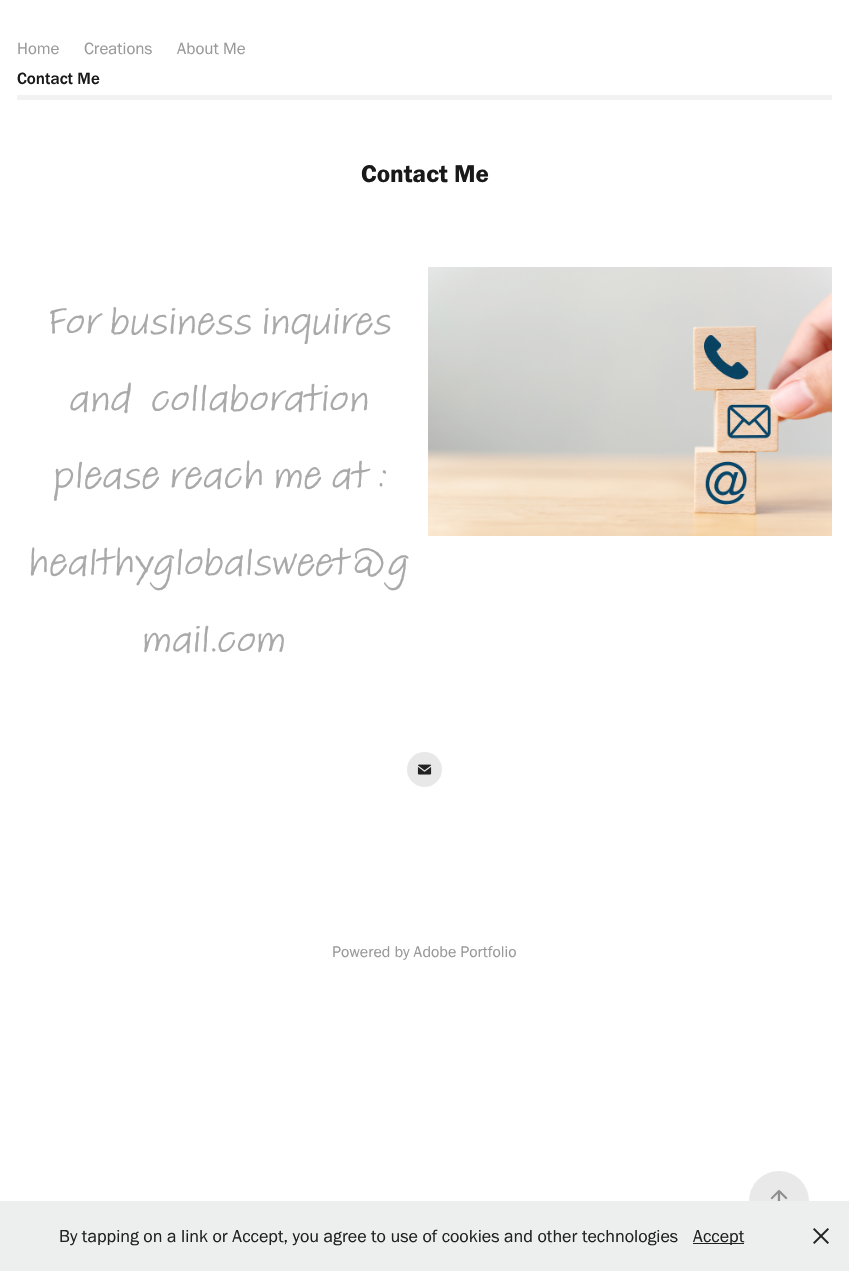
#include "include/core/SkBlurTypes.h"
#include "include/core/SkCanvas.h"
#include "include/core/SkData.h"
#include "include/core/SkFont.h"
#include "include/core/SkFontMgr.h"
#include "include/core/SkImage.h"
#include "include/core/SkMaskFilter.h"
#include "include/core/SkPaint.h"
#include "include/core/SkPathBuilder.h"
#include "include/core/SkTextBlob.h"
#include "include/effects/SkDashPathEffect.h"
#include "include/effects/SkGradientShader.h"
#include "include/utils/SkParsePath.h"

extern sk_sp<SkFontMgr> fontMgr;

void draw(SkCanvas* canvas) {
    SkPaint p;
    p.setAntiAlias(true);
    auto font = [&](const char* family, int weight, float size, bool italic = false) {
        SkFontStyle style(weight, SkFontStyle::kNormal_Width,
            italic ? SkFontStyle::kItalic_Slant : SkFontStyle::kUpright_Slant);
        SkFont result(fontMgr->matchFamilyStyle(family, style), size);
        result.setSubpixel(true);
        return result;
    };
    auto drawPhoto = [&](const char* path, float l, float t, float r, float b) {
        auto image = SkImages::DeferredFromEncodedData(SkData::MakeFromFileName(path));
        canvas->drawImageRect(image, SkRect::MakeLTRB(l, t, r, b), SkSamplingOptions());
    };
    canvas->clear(0xFFFFFFFF);
    p.setColor(0xFFF2F2F2);
    canvas->drawRect(SkRect::MakeLTRB(17, 95, 832, 100), p);
    auto font1 = font("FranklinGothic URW", 400, 17);
    p.setColor(0xFF999999);
    {
        const struct { const char* s; float x, y; } items[] = {
            {"Home", 17, 54},
            {"Creations", 84, 54},
            {"About Me", 177, 54},
        };
        for (auto [s, x, y] : items) {
            canvas->drawString(s, x, y, font1, p);
        }
    }
    auto font2 = font("FranklinGothic URW", 500, 17);
    p.setColor(0xFF191919);
    canvas->drawString("Contact Me", 17, 84, font2, p);
    auto font3 = font("FranklinGothic URW", 600, 25);
    canvas->drawString("Contact Me", 361, 182, font3, p);
    auto font4 = font("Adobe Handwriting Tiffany", 400, 40);
    p.setColor(0xFFA9A9A9);
    {
        const struct { const char* s; float x, y; } items[] = {
            {"For business inquires", 46, 334},
            {"and  collaboration", 69, 411},
            {"please reach me at :", 53, 488},
            {"healthyglobalsweet@g", 28, 575},
            {"mail.com", 142, 652},
        };
        for (auto [s, x, y] : items) {
            canvas->drawString(s, x, y, font4, p);
        }
    }
    drawPhoto("media/1.png", 428, 267, 832, 536);
    p.setColor(0xFFE8E8E8);
    canvas->drawCircle(424.5f, 769.5f, 17.5f, p);
    drawPhoto("media/2.png", 417, 764, 432, 775);
    p.setColor(0xFFE9E9E9);
    canvas->drawCircle(779, 1201, 30, p);
    drawPhoto("media/3.png", 770, 1190, 788, 1201);
    auto font5 = font("FranklinGothic URW", 400, 16);
    p.setColor(0xFF999999);
    canvas->drawString("Powered by Adobe Portfolio", 332, 957, font5, p);
    p.setColor(0xFFEDEEEE);
    canvas->drawRect(SkRect::MakeLTRB(0, 1201, 849, 1271), p);
    auto font6 = font("FranklinGothic URW", 400, 18);
    p.setColor(0xFF212121);
    canvas->drawString("By tapping on a link or Accept, you agree to use of cookies and other technologies", 59, 1242, font6, p);
    canvas->drawRect(SkRect::MakeLTRB(693, 1243, 744, 1244), p);
    canvas->drawString("Accept", 693, 1242, font6, p);
    drawPhoto("media/4.png", 813, 1228, 829, 1244);
}
